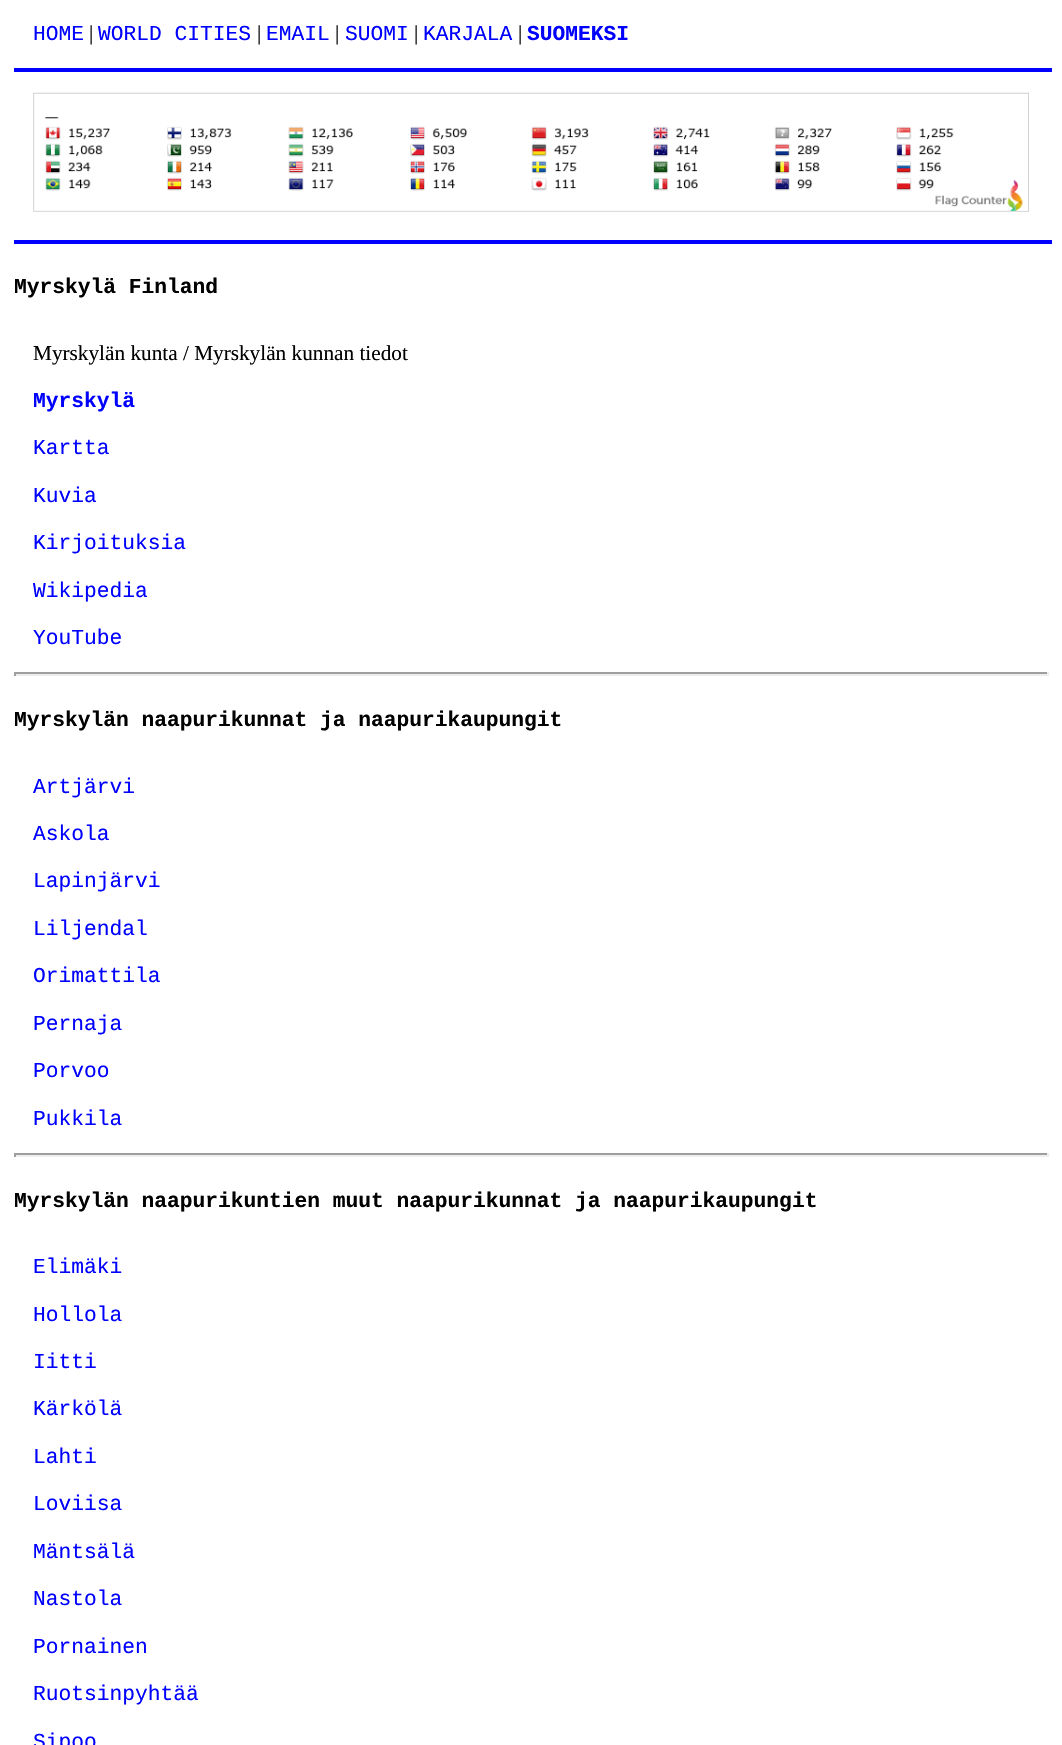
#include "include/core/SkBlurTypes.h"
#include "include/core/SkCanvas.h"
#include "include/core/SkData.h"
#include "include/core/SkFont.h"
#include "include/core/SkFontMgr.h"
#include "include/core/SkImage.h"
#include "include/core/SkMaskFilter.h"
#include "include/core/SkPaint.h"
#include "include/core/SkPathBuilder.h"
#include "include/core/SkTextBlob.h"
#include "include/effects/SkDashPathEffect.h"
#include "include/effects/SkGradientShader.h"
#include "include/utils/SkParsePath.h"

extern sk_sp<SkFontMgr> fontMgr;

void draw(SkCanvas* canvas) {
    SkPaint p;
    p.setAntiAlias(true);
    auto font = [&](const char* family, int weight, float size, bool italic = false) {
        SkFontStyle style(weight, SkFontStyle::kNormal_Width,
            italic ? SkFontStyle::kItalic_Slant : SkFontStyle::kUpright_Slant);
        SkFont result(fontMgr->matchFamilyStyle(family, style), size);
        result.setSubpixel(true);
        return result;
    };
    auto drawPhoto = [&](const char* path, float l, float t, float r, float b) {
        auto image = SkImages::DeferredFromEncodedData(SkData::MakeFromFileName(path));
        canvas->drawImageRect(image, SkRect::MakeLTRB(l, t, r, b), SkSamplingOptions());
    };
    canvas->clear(0xFFFFFFFF);
    auto font1 = font("Liberation Mono", 400, 21.25f);
    p.setColor(0xFF0000FF);
    canvas->drawString("HOME", 33, 40, font1, p);
    auto font2 = font("Liberation Serif", 400, 21.25f);
    p.setColor(0xFF000000);
    canvas->drawString("|", 89, 40, font2, p);
    p.setColor(0xFF0000FF);
    canvas->drawString("WORLD CITIES", 98, 40, font1, p);
    p.setColor(0xFF000000);
    canvas->drawString("|", 257, 40, font2, p);
    p.setColor(0xFF0000FF);
    canvas->drawString("EMAIL", 266, 40, font1, p);
    p.setColor(0xFF000000);
    canvas->drawString("|", 335, 40, font2, p);
    p.setColor(0xFF0000FF);
    canvas->drawString("SUOMI", 345, 40, font1, p);
    p.setColor(0xFF000000);
    canvas->drawString("|", 414, 40, font2, p);
    p.setColor(0xFF0000FF);
    canvas->drawString("KARJALA", 423, 40, font1, p);
    p.setColor(0xFF000000);
    canvas->drawString("|", 518, 40, font2, p);
    auto font3 = font("Liberation Mono", 700, 21.25f);
    p.setColor(0xFF0000FF);
    canvas->drawString("SUOMEKSI", 527, 40, font3, p);
    canvas->drawRect(SkRect::MakeLTRB(14, 68, 1052, 72), p);
    drawPhoto("media/1.png", 33, 92, 1029, 212);
    canvas->drawRect(SkRect::MakeLTRB(14, 240, 1052, 244), p);
    p.setColor(0xFF000000);
    canvas->drawString("Myrskylä Finland", 14, 293, font3, p);
    canvas->drawString("Myrskylän kunta / Myrskylän kunnan tiedot", 33, 360, font2, p);
    p.setColor(0xFF0000FF);
    canvas->drawString("Myrskylä", 33, 407, font3, p);
    {
        const struct { const char* s; float x, y; } items[] = {
            {"Kartta", 33, 454},
            {"Kuvia", 33, 502},
            {"Kirjoituksia", 33, 549},
            {"Wikipedia", 33, 597},
            {"YouTube", 33, 644},
        };
        for (auto [s, x, y] : items) {
            canvas->drawString(s, x, y, font1, p);
        }
    }
    {
        const struct { float l, t, r, b; SkColor color; } items[] = {
            {14, 672, 1048, 674, 0xFF9F9F9F},
            {1047, 672, 1049, 676, 0xFFEEEEEE},
            {14, 674, 1048, 676, 0xFFEEEEEE},
            {14, 672, 16, 676, 0xFF9F9F9F},
        };
        for (auto [l, t, r, b, color] : items) {
            p.setColor(color);
            canvas->drawRect(SkRect::MakeLTRB(l, t, r, b), p);
        }
    }
    p.setColor(0xFF000000);
    canvas->drawString("Myrskylän naapurikunnat ja naapurikaupungit", 14, 726, font3, p);
    p.setColor(0xFF0000FF);
    {
        const struct { const char* s; float x, y; } items[] = {
            {"Artjärvi", 33, 793},
            {"Askola", 33, 840},
            {"Lapinjärvi", 33, 887},
            {"Liljendal", 33, 935},
            {"Orimattila", 33, 982},
            {"Pernaja", 33, 1030},
            {"Porvoo", 33, 1077},
            {"Pukkila", 33, 1125},
        };
        for (auto [s, x, y] : items) {
            canvas->drawString(s, x, y, font1, p);
        }
    }
    {
        const struct { float l, t, r, b; SkColor color; } items[] = {
            {14, 1153, 1048, 1155, 0xFF9F9F9F},
            {1047, 1153, 1049, 1157, 0xFFEEEEEE},
            {14, 1155, 1048, 1157, 0xFFEEEEEE},
            {14, 1153, 16, 1157, 0xFF9F9F9F},
        };
        for (auto [l, t, r, b, color] : items) {
            p.setColor(color);
            canvas->drawRect(SkRect::MakeLTRB(l, t, r, b), p);
        }
    }
    p.setColor(0xFF000000);
    canvas->drawString("Myrskylän naapurikuntien muut naapurikunnat ja naapurikaupungit", 14, 1207, font3, p);
    p.setColor(0xFF0000FF);
    {
        const struct { const char* s; float x, y; } items[] = {
            {"Elimäki", 33, 1273},
            {"Hollola", 33, 1321},
            {"Iitti", 33, 1368},
            {"Kärkölä", 33, 1415},
            {"Lahti", 33, 1463},
            {"Loviisa", 33, 1510},
            {"Mäntsälä", 33, 1558},
            {"Nastola", 33, 1605},
            {"Pornainen", 33, 1653},
            {"Ruotsinpyhtää", 33, 1700},
            {"Sipoo", 33, 1748},
        };
        for (auto [s, x, y] : items) {
            canvas->drawString(s, x, y, font1, p);
        }
    }
}
